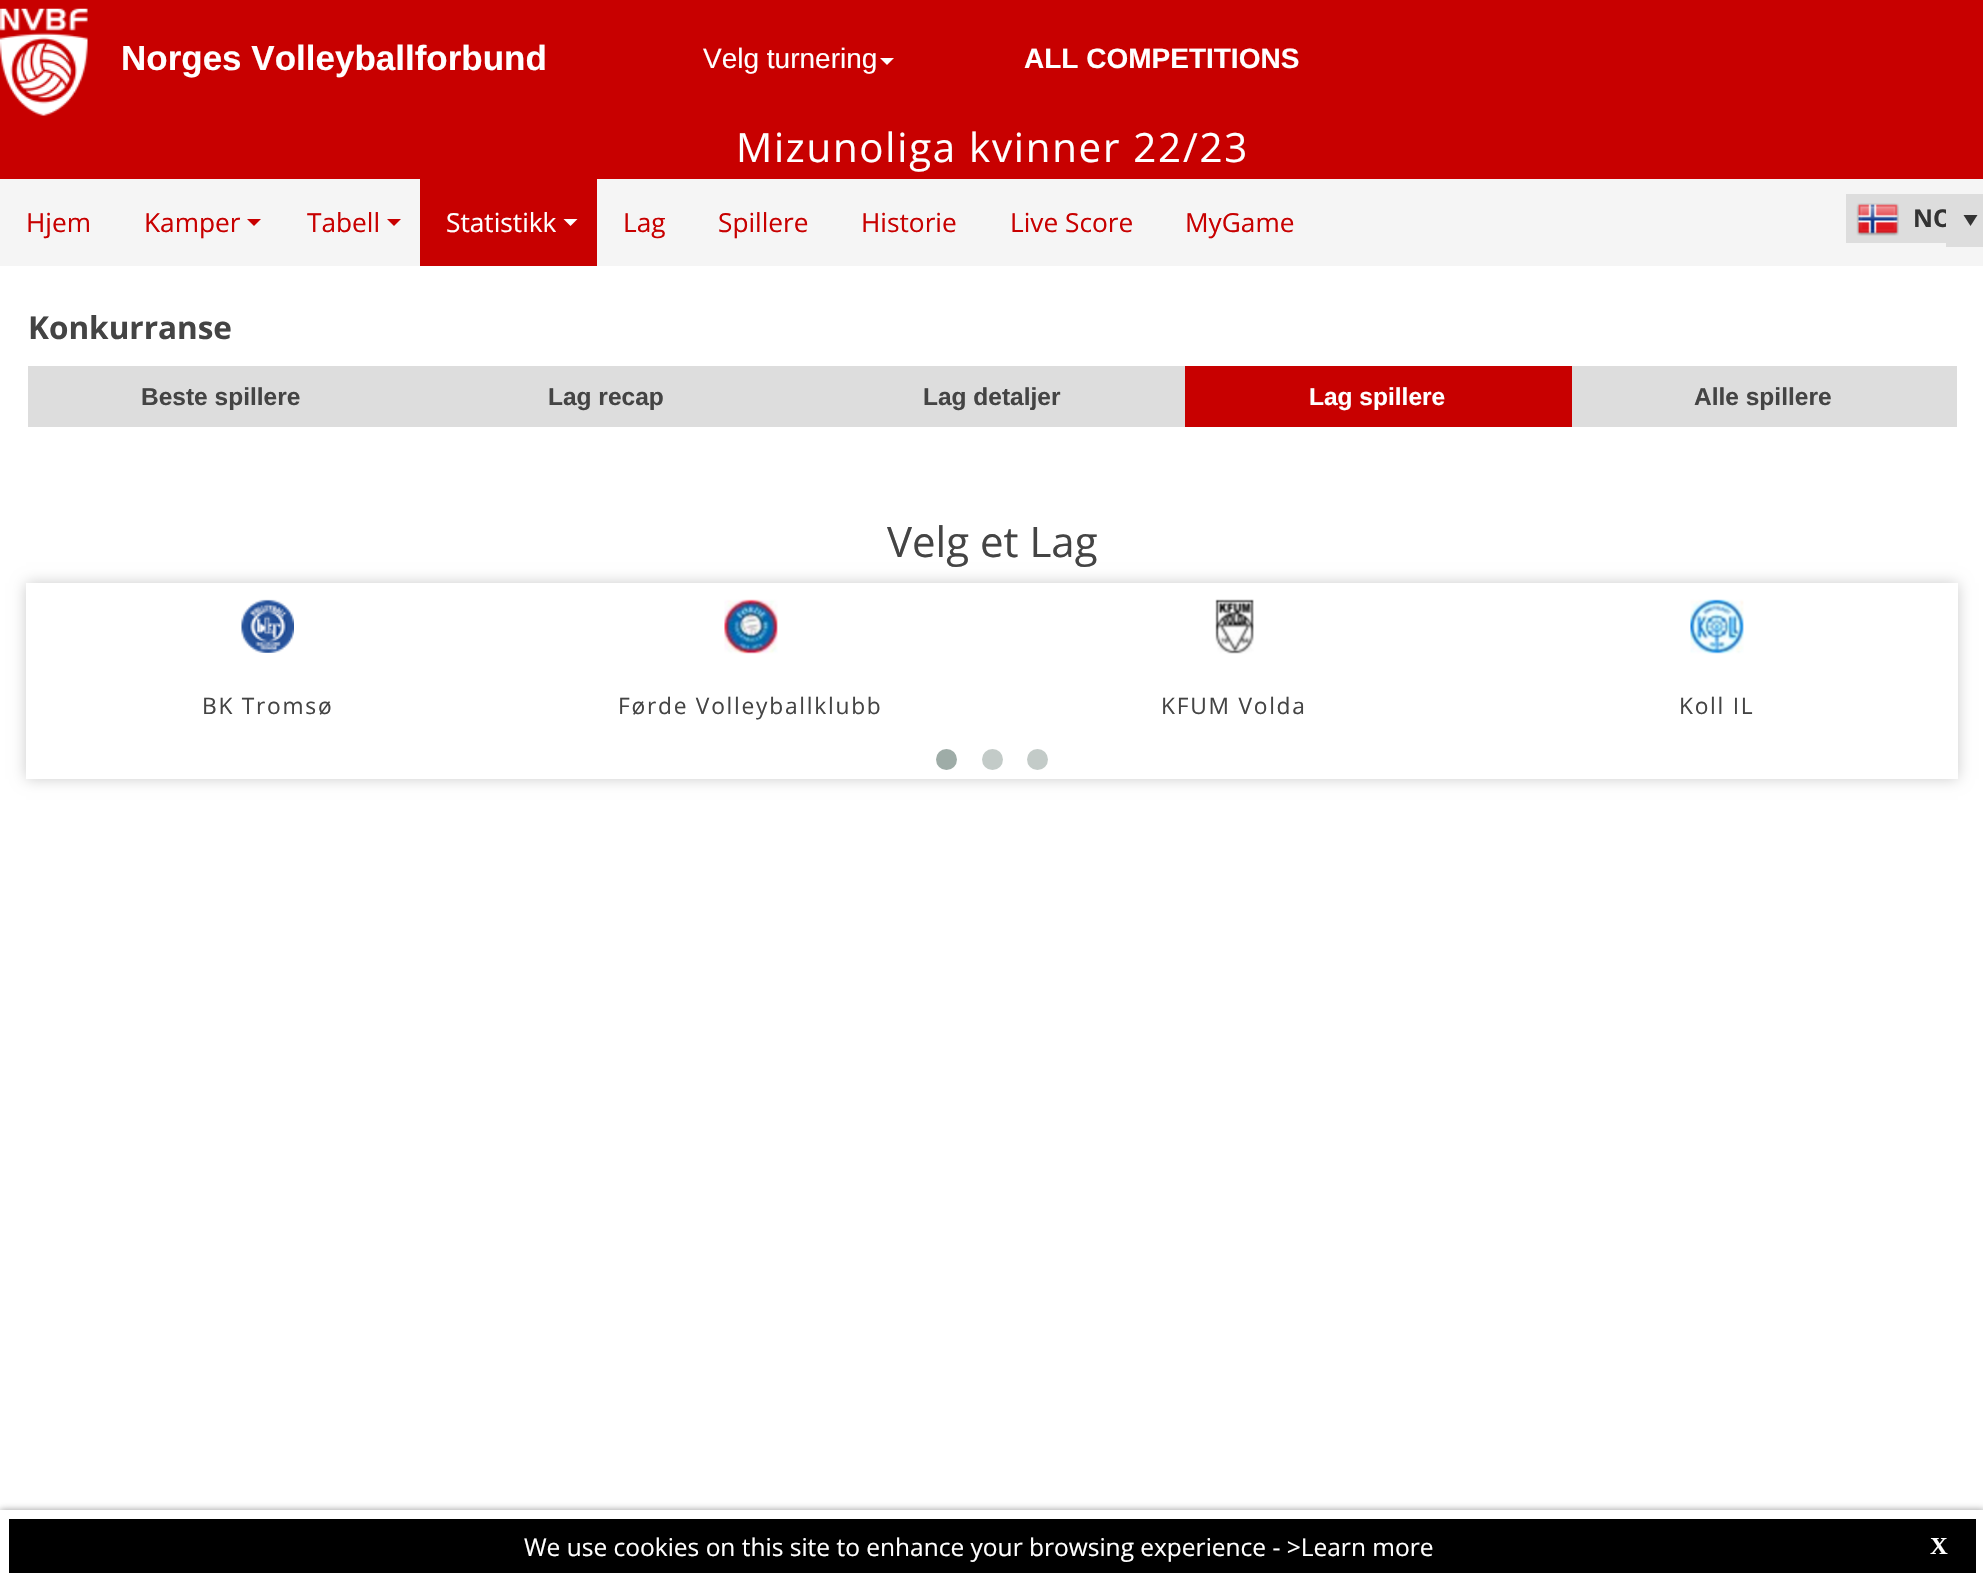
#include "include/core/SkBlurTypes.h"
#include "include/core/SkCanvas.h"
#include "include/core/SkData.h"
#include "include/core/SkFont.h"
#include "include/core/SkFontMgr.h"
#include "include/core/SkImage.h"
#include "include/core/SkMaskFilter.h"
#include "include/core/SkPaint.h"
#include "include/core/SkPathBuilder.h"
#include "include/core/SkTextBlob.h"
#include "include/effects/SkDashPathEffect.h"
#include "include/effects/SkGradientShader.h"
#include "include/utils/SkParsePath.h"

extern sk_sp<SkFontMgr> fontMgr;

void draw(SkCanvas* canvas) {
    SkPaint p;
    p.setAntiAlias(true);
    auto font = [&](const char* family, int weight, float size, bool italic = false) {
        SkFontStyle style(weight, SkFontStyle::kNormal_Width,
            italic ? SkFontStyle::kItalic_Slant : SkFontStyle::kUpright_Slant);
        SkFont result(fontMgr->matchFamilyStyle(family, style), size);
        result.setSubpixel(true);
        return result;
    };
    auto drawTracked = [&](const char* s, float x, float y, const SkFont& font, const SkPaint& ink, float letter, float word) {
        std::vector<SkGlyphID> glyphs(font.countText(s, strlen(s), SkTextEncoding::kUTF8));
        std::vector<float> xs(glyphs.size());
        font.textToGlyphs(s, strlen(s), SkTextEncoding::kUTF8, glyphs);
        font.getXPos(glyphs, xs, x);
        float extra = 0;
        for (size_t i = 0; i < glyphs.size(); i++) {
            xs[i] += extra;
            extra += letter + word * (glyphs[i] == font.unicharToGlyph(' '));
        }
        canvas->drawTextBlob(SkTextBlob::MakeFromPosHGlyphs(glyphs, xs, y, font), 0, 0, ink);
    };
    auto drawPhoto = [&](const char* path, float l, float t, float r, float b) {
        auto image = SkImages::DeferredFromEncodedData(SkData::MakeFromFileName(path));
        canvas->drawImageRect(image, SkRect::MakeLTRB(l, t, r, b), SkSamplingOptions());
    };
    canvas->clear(0xFFFFFFFF);
    p.setColor(0xFFC80000);
    canvas->drawRect(SkRect::MakeLTRB(0, 0, 1983, 179), p);
    drawPhoto("media/1.png", 0, 8, 88, 116);
    auto font1 = font("Liberation Sans", 700, 35);
    p.setColor(0xFFFFFFFF);
    canvas->drawString("Norges Volleyballforbund", 121, 70, font1, p);
    auto font2 = font("Liberation Sans", 400, 28);
    canvas->drawString("Velg turnering", 703, 68, font2, p);
    canvas->drawPath(SkPathBuilder().moveTo(880, 58).lineTo(894, 58).lineTo(887, 65).close().detach(), p);
    auto font3 = font("Liberation Sans", 700, 28);
    canvas->drawString("ALL COMPETITIONS", 1024, 68, font3, p);
    auto font4 = font("Open Sans", 400, 40.25f);
    drawTracked("Mizunoliga kvinner 22/23", 736, 162, font4, p, 1.75f, 0);
    p.setColor(0xFFF5F5F5);
    canvas->drawRect(SkRect::MakeLTRB(0, 179, 1983, 266), p);
    auto font5 = font("Open Sans", 400, 26.25f);
    p.setColor(0xFFC80000);
    canvas->drawString("Hjem", 26, 232, font5, p);
    canvas->drawString("Kamper", 144, 232, font5, p);
    canvas->drawPath(SkPathBuilder().moveTo(247, 219).lineTo(261, 219).lineTo(254, 226).close().detach(), p);
    canvas->drawString("Tabell", 307, 232, font5, p);
    canvas->drawPath(SkPathBuilder().moveTo(387, 219).lineTo(401, 219).lineTo(394, 226).close().detach(), p);
    canvas->drawRect(SkRect::MakeLTRB(420, 179, 597, 266), p);
    p.setColor(0xFFFFFFFF);
    canvas->drawString("Statistikk", 446, 232, font5, p);
    canvas->drawPath(SkPathBuilder().moveTo(563.5f, 219).lineTo(577.5f, 219).lineTo(570.5f, 226).close().detach(), p);
    p.setColor(0xFFC80000);
    {
        const struct { const char* s; float x, y; } items[] = {
            {"Lag", 623, 232},
            {"Spillere", 718, 232},
            {"Historie", 861, 232},
            {"Live Score", 1010, 232},
            {"MyGame", 1185, 232},
        };
        for (auto [s, x, y] : items) {
            canvas->drawString(s, x, y, font5, p);
        }
    }
    p.setColor(0xFFDDDDDD);
    canvas->drawRect(SkRect::MakeLTRB(1846, 194, 1983, 243), p);
    drawPhoto("media/2.png", 1856, 203, 1899, 236);
    auto font6 = font("Open Sans", 700, 24.5f);
    p.setColor(0xFF333333);
    canvas->drawString("NO", 1913, 227, font6, p);
    p.setColor(0xFFDDDDDD);
    canvas->drawRect(SkRect::MakeLTRB(1946, 209, 1983, 247), p);
    p.setColor(0xFF333333);
    canvas->drawPath(SkPathBuilder().moveTo(1970.5f, 226).lineTo(1963.5f, 215).lineTo(1977.5f, 215).close().detach(), p);
    auto font7 = font("Open Sans", 700, 31.5f);
    p.setColor(0xFF444444);
    canvas->drawString("Konkurranse", 28, 339, font7, p);
    p.setColor(0xFFDDDDDD);
    canvas->drawRect(SkRect::MakeLTRB(28, 366, 1185, 427), p);
    auto font8 = font("Liberation Sans", 700, 24.5f);
    p.setColor(0xFF444444);
    {
        const struct { const char* s; float x, y; } items[] = {
            {"Beste spillere", 141, 405},
            {"Lag recap", 548, 405},
            {"Lag detaljer", 923, 405},
        };
        for (auto [s, x, y] : items) {
            canvas->drawString(s, x, y, font8, p);
        }
    }
    p.setColor(0xFFC80000);
    canvas->drawRect(SkRect::MakeLTRB(1185, 366, 1572, 427), p);
    p.setColor(0xFFFFFFFF);
    canvas->drawString("Lag spillere", 1309, 405, font8, p);
    p.setColor(0xFFDDDDDD);
    canvas->drawRect(SkRect::MakeLTRB(1572, 366, 1957, 427), p);
    p.setColor(0xFF444444);
    canvas->drawString("Alle spillere", 1694, 405, font8, p);
    canvas->save();
    canvas->clipPath(SkPathBuilder(SkPathFillType::kEvenOdd).moveTo(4, 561).lineTo(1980, 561).lineTo(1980, 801).lineTo(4, 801).close().moveTo(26, 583).lineTo(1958, 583).lineTo(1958, 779).lineTo(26, 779).close().detach(), true);
    p.setColor(0xFFCCCCCC);
    p.setMaskFilter(SkMaskFilter::MakeBlur(kNormal_SkBlurStyle, 7));
    canvas->drawRect(SkRect::MakeLTRB(26, 583, 1958, 779), p);
    p.setMaskFilter(nullptr);
    canvas->restore();
    auto font9 = font("Open Sans", 400, 42);
    p.setColor(0xFF444444);
    canvas->drawString("Velg et Lag", 887, 557, font9, p);
    p.setColor(0xBFFFFFFF);
    canvas->drawRect(SkRect::MakeLTRB(26, 583, 1958, 779), p);
    drawPhoto("media/3.png", 241, 599, 294, 653);
    auto font10 = font("Open Sans", 400, 22.75f);
    p.setColor(0xFF444444);
    drawTracked("BK Tromsø", 202, 714, font10, p, 1.75f, 0);
    drawPhoto("media/4.png", 724, 599, 778, 654);
    drawTracked("Førde Volleyballklubb", 618, 714, font10, p, 1.75f, 0);
    drawPhoto("media/5.png", 1215, 599, 1254, 654);
    drawTracked("KFUM Volda", 1161, 714, font10, p, 1.75f, 0);
    drawPhoto("media/6.png", 1690, 599, 1744, 654);
    drawTracked("Koll IL", 1679, 714, font10, p, 1.75f, 0);
    p.setColor(0xFF9EACA7);
    canvas->drawCircle(946.5f, 759.5f, 10.5f, p);
    p.setColor(0xFFC3CBC8);
    canvas->drawCircle(992.5f, 759.5f, 10.5f, p);
    canvas->drawCircle(1037.5f, 759.5f, 10.5f, p);
    p.setColor(0xFF999999);
    p.setMaskFilter(SkMaskFilter::MakeBlur(kNormal_SkBlurStyle, 3.5f));
    canvas->drawRect(SkRect::MakeLTRB(0, 1510, 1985, 1580), p);
    p.setMaskFilter(nullptr);
    p.setColor(0xFF000000);
    canvas->drawRect(SkRect::MakeLTRB(4.5f, 1514.5f, 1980.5f, 1577.5f), p);
    p.setStyle(SkPaint::kStroke_Style);
    p.setStrokeWidth(9);
    p.setColor(0xFFFFFFFF);
    canvas->drawRect(SkRect::MakeLTRB(4.5f, 1514.5f, 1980.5f, 1577.5f), p);
    auto font11 = font("Open Sans", 400, 24.5f);
    p.setStyle(SkPaint::kFill_Style);
    canvas->drawString("We use cookies on this site to enhance your browsing experience - >Learn more", 524, 1556, font11, p);
    auto font12 = font("Liberation Serif", 700, 24.5f);
    canvas->drawString("X", 1930, 1554, font12, p);
}
